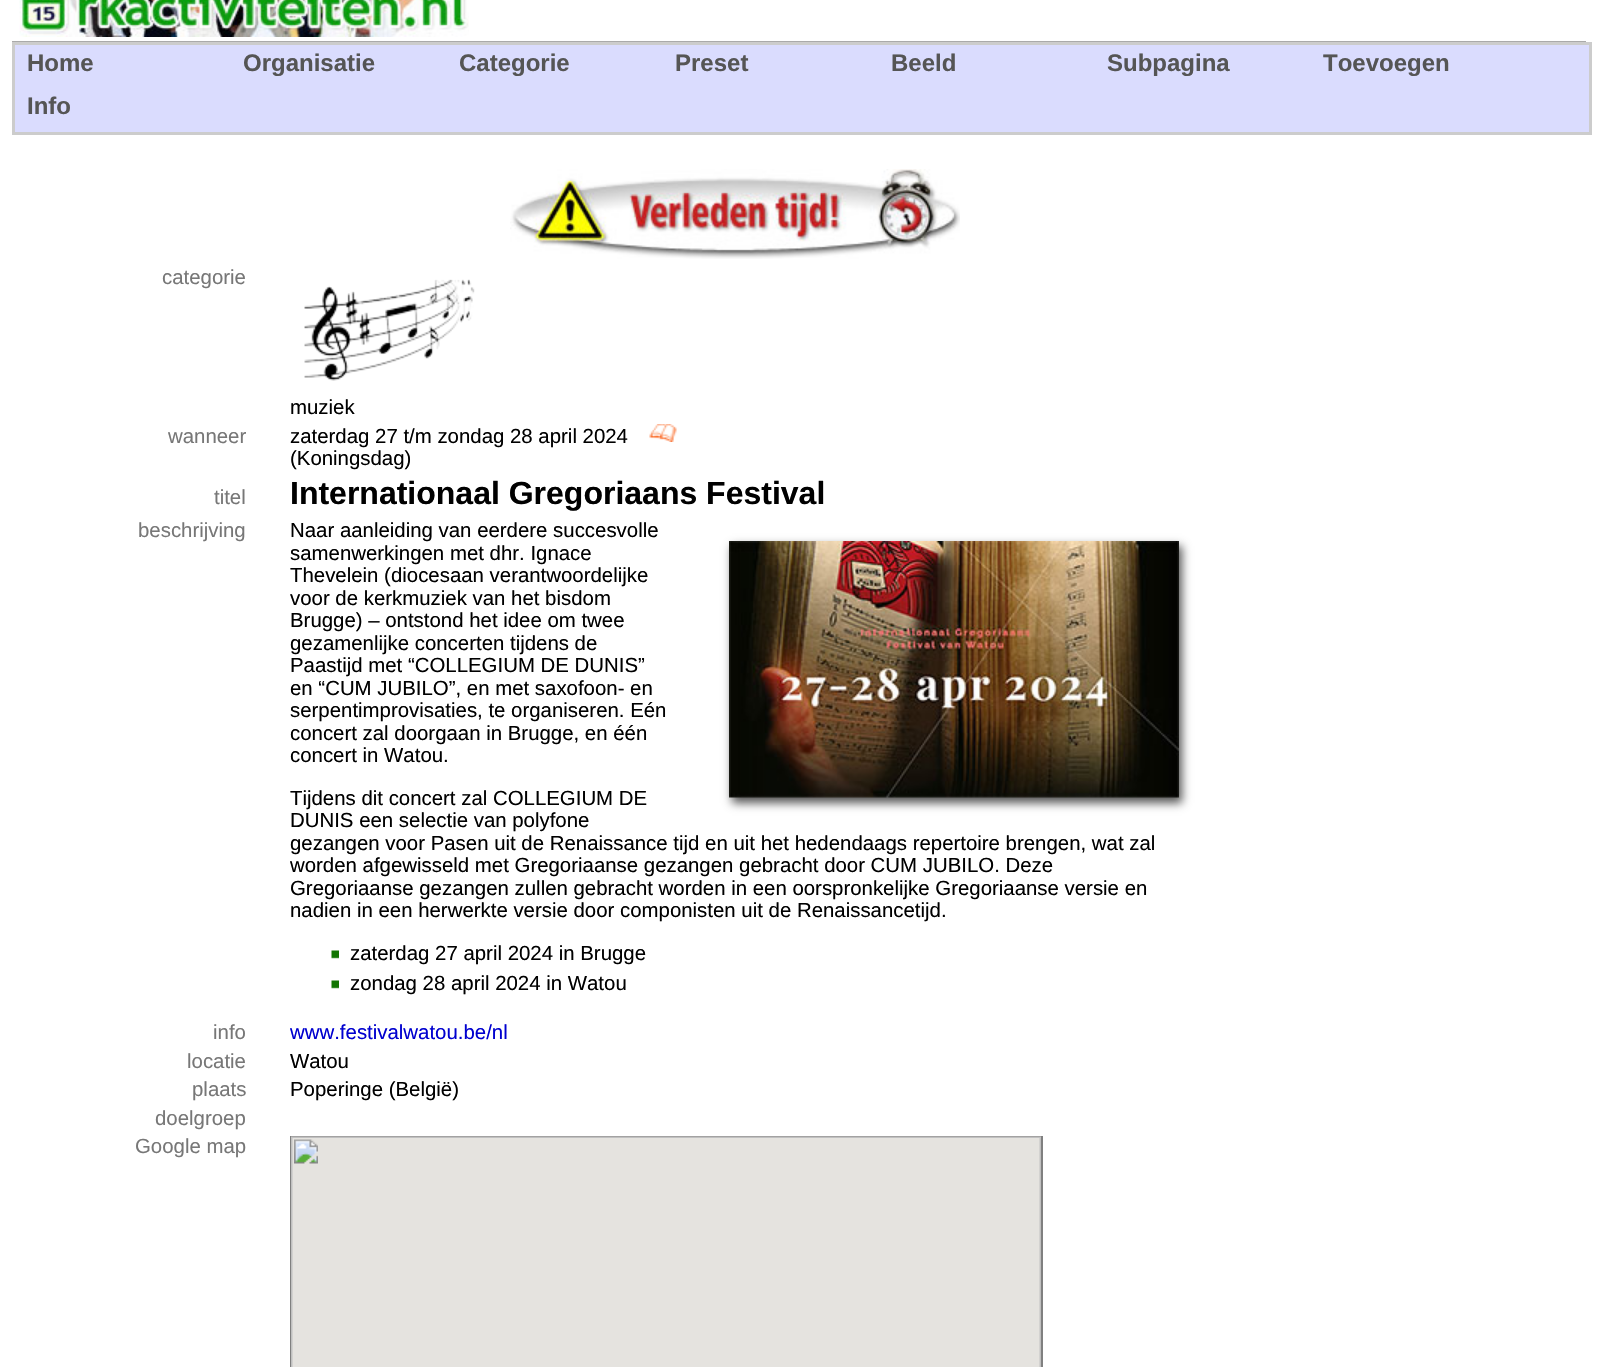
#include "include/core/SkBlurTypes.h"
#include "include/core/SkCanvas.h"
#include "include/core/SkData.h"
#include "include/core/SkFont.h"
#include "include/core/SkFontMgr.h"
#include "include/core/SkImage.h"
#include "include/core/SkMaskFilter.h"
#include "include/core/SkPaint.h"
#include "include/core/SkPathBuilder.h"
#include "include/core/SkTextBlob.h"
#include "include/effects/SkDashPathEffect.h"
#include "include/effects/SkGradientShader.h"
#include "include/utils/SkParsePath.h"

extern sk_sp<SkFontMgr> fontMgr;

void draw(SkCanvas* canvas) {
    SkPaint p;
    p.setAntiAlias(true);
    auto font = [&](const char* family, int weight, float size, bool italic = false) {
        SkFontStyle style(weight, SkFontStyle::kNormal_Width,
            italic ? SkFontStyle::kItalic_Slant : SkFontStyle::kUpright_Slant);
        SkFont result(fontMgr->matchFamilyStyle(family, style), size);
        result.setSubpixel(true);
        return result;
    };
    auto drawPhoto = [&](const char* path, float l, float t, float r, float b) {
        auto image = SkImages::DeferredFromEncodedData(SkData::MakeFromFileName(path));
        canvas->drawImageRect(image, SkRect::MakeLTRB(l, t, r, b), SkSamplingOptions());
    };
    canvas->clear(0xFFFFFFFF);
    p.setColor(0xFFAAAAAA);
    canvas->drawRect(SkRect::MakeLTRB(12, 41, 1586, 42), p);
    drawPhoto("media/1.png", 19, 0, 469, 37);
    p.setColor(0xFFDADCFE);
    canvas->drawRect(SkRect::MakeLTRB(13.5f, 43.5f, 1590.5f, 133.5f), p);
    p.setStyle(SkPaint::kStroke_Style);
    p.setStrokeWidth(3);
    p.setColor(0xFFCCCCCC);
    canvas->drawRect(SkRect::MakeLTRB(13.5f, 43.5f, 1590.5f, 133.5f), p);
    auto font1 = font("Liberation Sans", 700, 24);
    p.setStyle(SkPaint::kFill_Style);
    p.setColor(0xFF555555);
    {
        const struct { const char* s; float x, y; } items[] = {
            {"Home", 27, 71},
            {"Organisatie", 243, 71},
            {"Categorie", 459, 71},
            {"Preset", 675, 71},
            {"Beeld", 891, 71},
            {"Subpagina", 1107, 71},
            {"Toevoegen", 1323, 71},
            {"Info", 27, 114},
        };
        for (auto [s, x, y] : items) {
            canvas->drawString(s, x, y, font1, p);
        }
    }
    drawPhoto("media/2.png", 510, 169, 960, 259);
    auto font2 = font("Liberation Sans", 400, 20.4f);
    p.setColor(0xFF777777);
    canvas->drawString("categorie", 162, 284, font2, p);
    drawPhoto("media/3.png", 304, 279, 475, 381);
    p.setColor(0xFF000000);
    canvas->drawString("muziek", 290, 414, font2, p);
    p.setColor(0xFF777777);
    canvas->drawString("wanneer", 168, 443, font2, p);
    p.setColor(0xFF000000);
    canvas->drawString("zaterdag 27 t/m zondag 28 april 2024", 290, 443, font2, p);
    drawPhoto("media/4.png", 649, 424, 677, 442);
    canvas->drawString("(Koningsdag)", 290, 465, font2, p);
    p.setColor(0xFF777777);
    canvas->drawString("titel", 214, 504, font2, p);
    auto font3 = font("Liberation Sans", 700, 32);
    p.setColor(0xFF000000);
    canvas->drawString("Internationaal Gregoriaans Festival", 290, 504, font3, p);
    p.setColor(0xFF777777);
    canvas->drawString("beschrijving", 138, 537, font2, p);
    p.setColor(0xFF000000);
    {
        const struct { const char* s; float x, y; } items[] = {
            {"Naar aanleiding van eerdere succesvolle", 290, 537},
            {"samenwerkingen met dhr. Ignace", 290, 560},
            {"Thevelein (diocesaan verantwoordelijke", 290, 582},
            {"voor de kerkmuziek van het bisdom", 290, 605},
            {"Brugge) – ontstond het idee om twee", 290, 627},
            {"gezamenlijke concerten tijdens de", 290, 650},
            {"Paastijd met “COLLEGIUM DE DUNIS”", 290, 672},
            {"en “CUM JUBILO”, en met saxofoon- en", 290, 695},
            {"serpentimprovisaties, te organiseren. Eén", 290, 717},
            {"concert zal doorgaan in Brugge, en één", 290, 740},
            {"concert in Watou.", 290, 762},
        };
        for (auto [s, x, y] : items) {
            canvas->drawString(s, x, y, font2, p);
        }
    }
    p.setColor(0xFF555555);
    p.setMaskFilter(SkMaskFilter::MakeBlur(kNormal_SkBlurStyle, 4.5f));
    canvas->drawRect(SkRect::MakeLTRB(732, 546, 1182, 803), p);
    p.setMaskFilter(nullptr);
    drawPhoto("media/5.png", 729, 541, 1179, 798);
    p.setColor(0xFF000000);
    {
        const struct { const char* s; float x, y; } items[] = {
            {"Tijdens dit concert zal COLLEGIUM DE", 290, 805},
            {"DUNIS een selectie van polyfone", 290, 827},
            {"gezangen voor Pasen uit de Renaissance tijd en uit het hedendaags repertoire brengen, wat zal", 290, 850},
            {"worden afgewisseld met Gregoriaanse gezangen gebracht door CUM JUBILO. Deze", 290, 872},
            {"Gregoriaanse gezangen zullen gebracht worden in een oorspronkelijke Gregoriaanse versie en", 290, 895},
            {"nadien in een herwerkte versie door componisten uit de Renaissancetijd.", 290, 917},
        };
        for (auto [s, x, y] : items) {
            canvas->drawString(s, x, y, font2, p);
        }
    }
    drawPhoto("media/6.png", 331, 950, 339, 959);
    canvas->drawString("zaterdag 27 april 2024 in Brugge", 350, 960, font2, p);
    drawPhoto("media/6.png", 331, 980, 339, 989);
    canvas->drawString("zondag 28 april 2024 in Watou", 350, 990, font2, p);
    p.setColor(0xFF777777);
    canvas->drawString("info", 213, 1039, font2, p);
    p.setColor(0xFF0000CF);
    canvas->drawString("www.festivalwatou.be/nl", 290, 1039, font2, p);
    p.setColor(0xFF777777);
    canvas->drawString("locatie", 187, 1068, font2, p);
    p.setColor(0xFF000000);
    canvas->drawString("Watou", 290, 1068, font2, p);
    p.setColor(0xFF777777);
    canvas->drawString("plaats", 192, 1096, font2, p);
    p.setColor(0xFF000000);
    canvas->drawString("Poperinge (België)", 290, 1096, font2, p);
    p.setColor(0xFF777777);
    canvas->drawString("doelgroep", 155, 1125, font2, p);
    canvas->drawString("Google map", 135, 1153, font2, p);
    p.setStyle(SkPaint::kStroke_Style);
    p.setStrokeWidth(2);
    p.setColor(0xFF808080);
    canvas->drawRect(SkRect::MakeLTRB(291, 1137, 1042, 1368), p);
    drawPhoto("media/7.png", 291, 1136, 1041, 1367);
}
